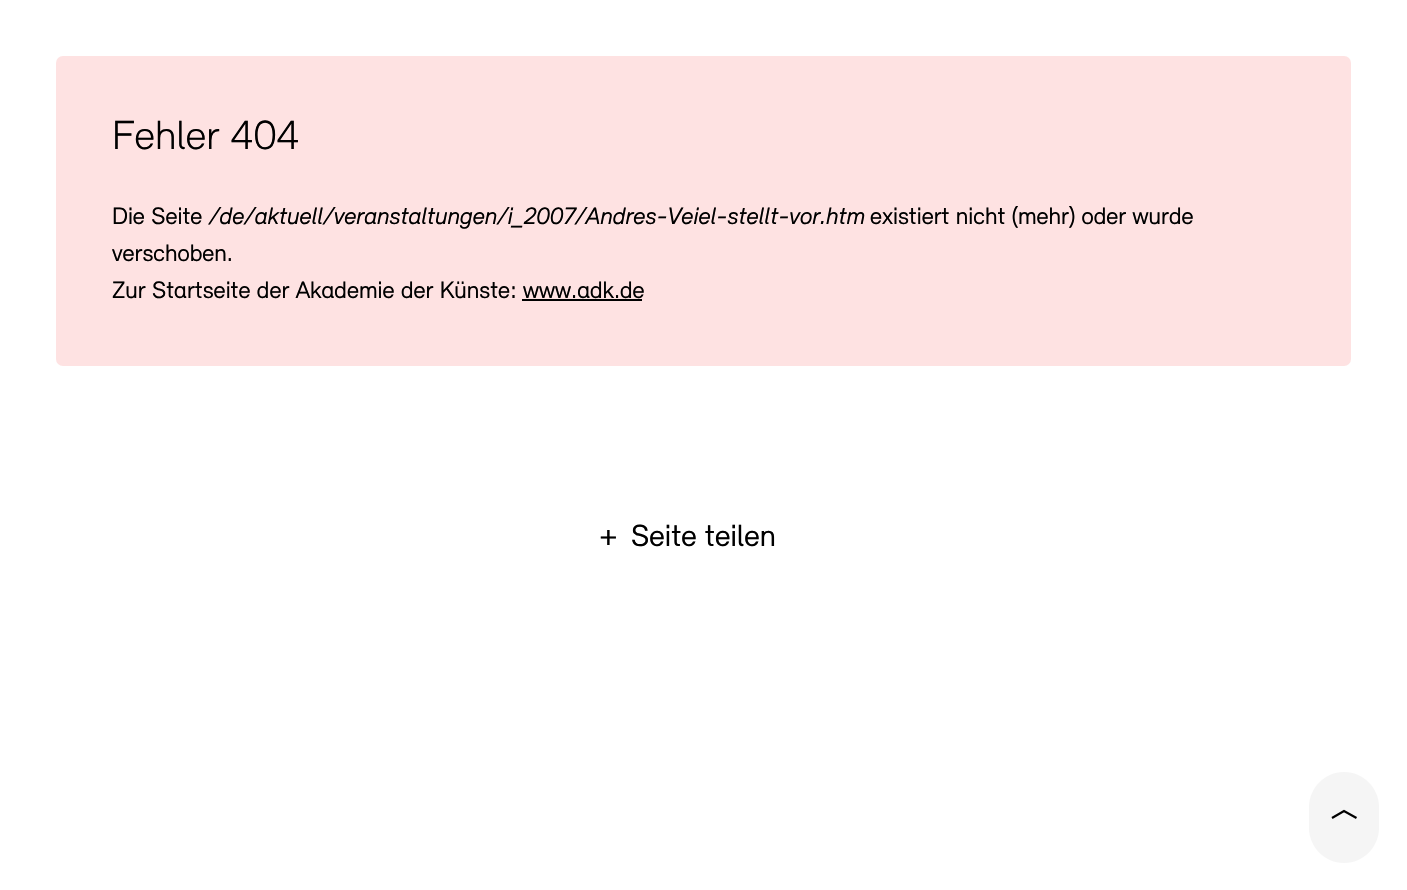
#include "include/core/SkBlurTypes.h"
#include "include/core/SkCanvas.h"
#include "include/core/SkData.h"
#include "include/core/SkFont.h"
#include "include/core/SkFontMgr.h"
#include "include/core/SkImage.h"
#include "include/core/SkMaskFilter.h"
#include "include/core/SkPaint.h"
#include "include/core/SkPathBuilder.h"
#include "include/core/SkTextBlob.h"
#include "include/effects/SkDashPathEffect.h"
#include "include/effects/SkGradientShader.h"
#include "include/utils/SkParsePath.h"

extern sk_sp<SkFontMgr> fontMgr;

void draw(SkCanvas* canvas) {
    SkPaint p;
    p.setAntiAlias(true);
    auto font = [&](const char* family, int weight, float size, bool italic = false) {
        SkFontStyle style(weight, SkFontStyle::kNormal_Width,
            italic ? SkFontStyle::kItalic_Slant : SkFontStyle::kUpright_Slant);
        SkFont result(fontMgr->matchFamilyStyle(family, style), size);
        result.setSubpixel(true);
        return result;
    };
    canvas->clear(0xFFFFFFFF);
    p.setColor(0xFFFEE2E2);
    canvas->drawRoundRect(SkRect::MakeLTRB(56, 56, 1351, 366), 7, 7, p);
    auto font1 = font("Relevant", 300, 42);
    p.setColor(0xFF000000);
    canvas->drawString("Fehler 404", 112, 149, font1, p);
    auto font2 = font("Relevant", 400, 24.5f);
    canvas->drawString("Die Seite", 112, 224, font2, p);
    auto font3 = font("Relevant", 400, 24.5f, true);
    canvas->drawString("/de/aktuell/veranstaltungen/i_2007/Andres-Veiel-stellt-vor.htm", 209, 224, font3, p);
    {
        const struct { const char* s; float x, y; } items[] = {
            {"existiert nicht (mehr) oder wurde", 870, 224},
            {"verschoben.", 112, 261},
            {"Zur Startseite der Akademie der Künste: www.adk.de", 112, 298},
        };
        for (auto [s, x, y] : items) {
            canvas->drawString(s, x, y, font2, p);
        }
    }
    canvas->drawRect(SkRect::MakeLTRB(522, 299, 642, 301), p);
    auto font4 = font("Relevant", 400, 31.5f);
    canvas->drawString("+", 600, 546, font4, p);
    canvas->drawString("Seite teilen", 631, 546, font4, p);
    p.setColor(0xFFF5F5F5);
    canvas->drawPath(SkPathBuilder().moveTo(1309, 828).lineTo(1309, 807).cubicTo(1309, 788, 1325, 772, 1344, 772).cubicTo(1363, 772, 1379, 788, 1379, 807).lineTo(1379, 828).cubicTo(1379, 847, 1363, 863, 1344, 863).cubicTo(1325, 863, 1309, 847, 1309, 828).close().detach(), p);
    p.setStyle(SkPaint::kStroke_Style);
    p.setStrokeWidth(2.2f);
    p.setColor(0xFF000000);
    canvas->drawPath(SkPathBuilder().moveTo(1332, 818).lineTo(1344, 811).lineTo(1356.5f, 818).detach(), p);
}
